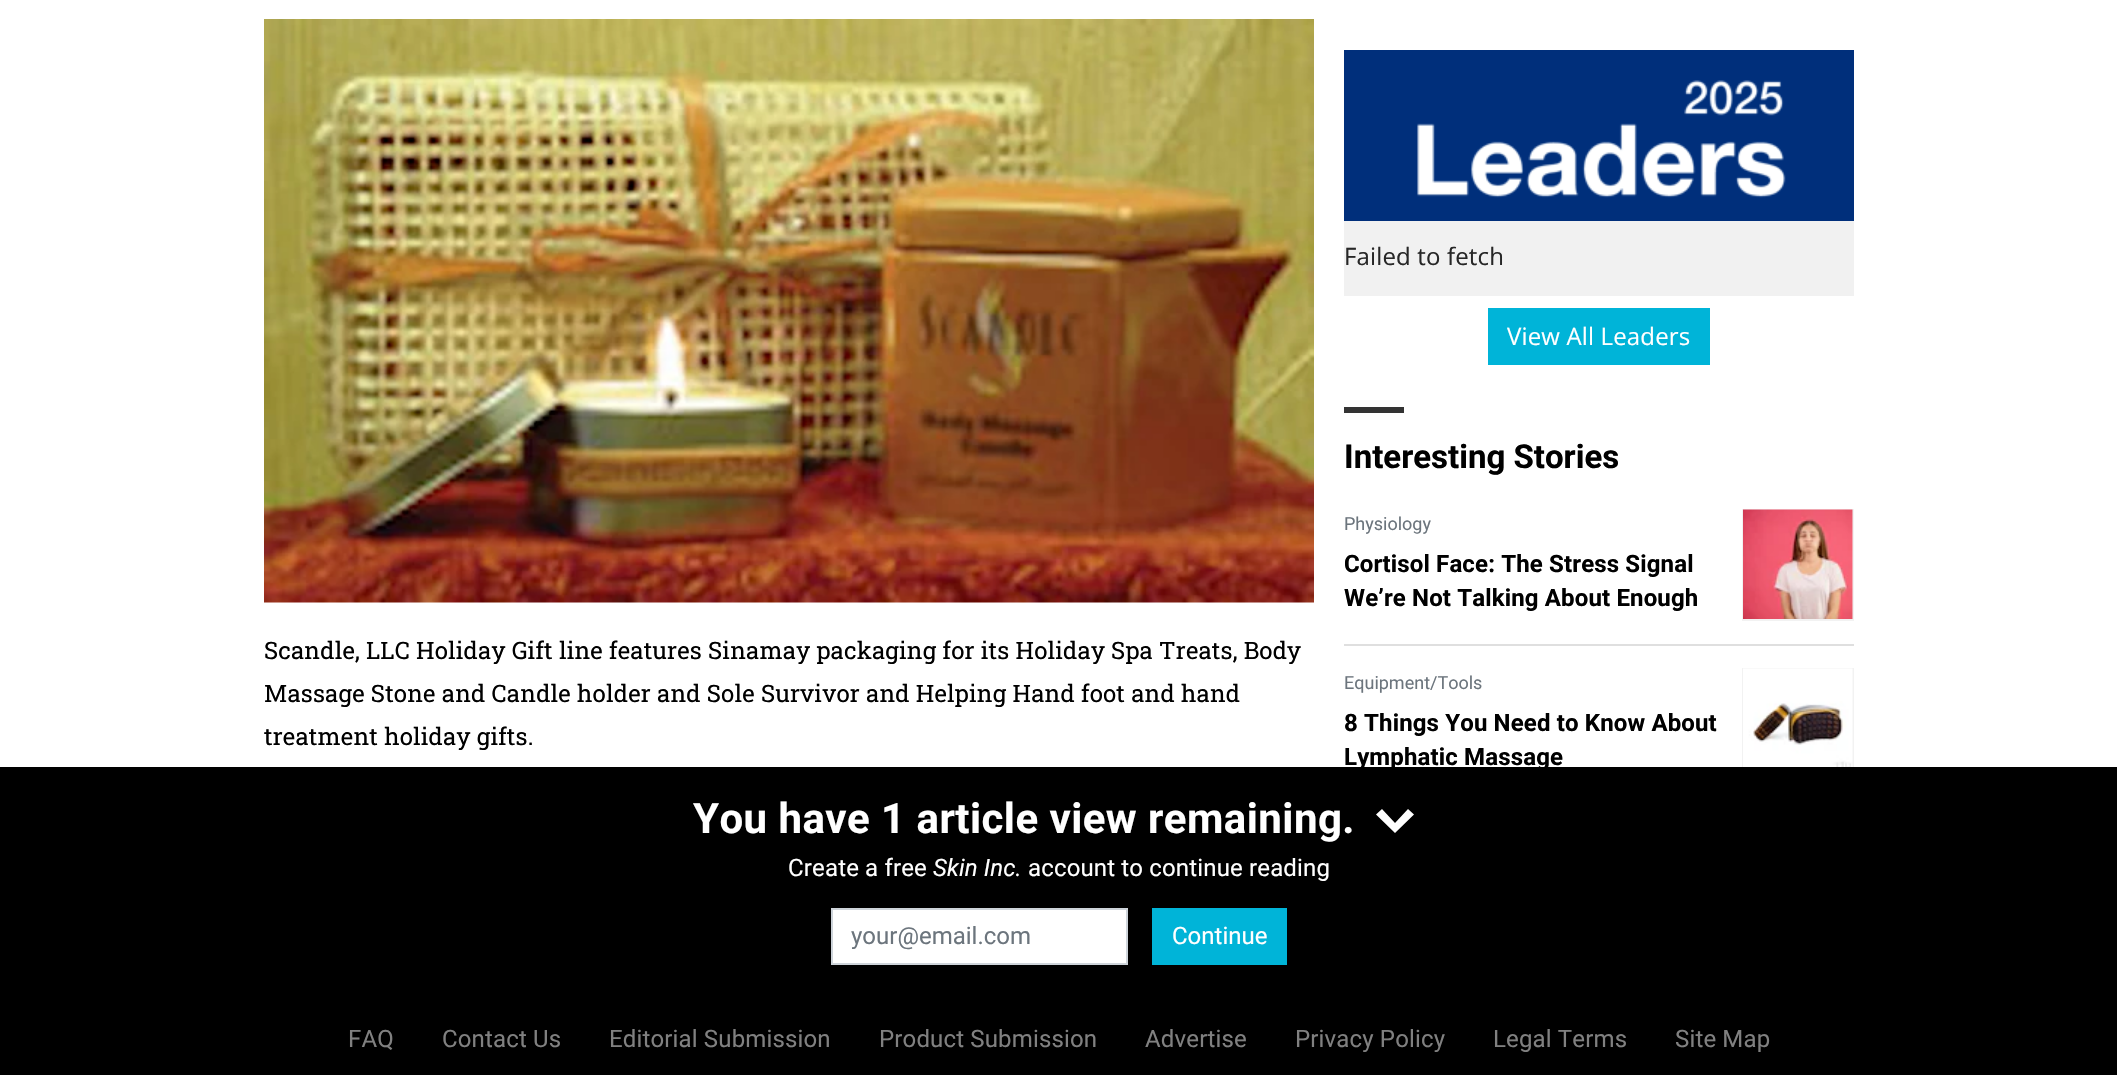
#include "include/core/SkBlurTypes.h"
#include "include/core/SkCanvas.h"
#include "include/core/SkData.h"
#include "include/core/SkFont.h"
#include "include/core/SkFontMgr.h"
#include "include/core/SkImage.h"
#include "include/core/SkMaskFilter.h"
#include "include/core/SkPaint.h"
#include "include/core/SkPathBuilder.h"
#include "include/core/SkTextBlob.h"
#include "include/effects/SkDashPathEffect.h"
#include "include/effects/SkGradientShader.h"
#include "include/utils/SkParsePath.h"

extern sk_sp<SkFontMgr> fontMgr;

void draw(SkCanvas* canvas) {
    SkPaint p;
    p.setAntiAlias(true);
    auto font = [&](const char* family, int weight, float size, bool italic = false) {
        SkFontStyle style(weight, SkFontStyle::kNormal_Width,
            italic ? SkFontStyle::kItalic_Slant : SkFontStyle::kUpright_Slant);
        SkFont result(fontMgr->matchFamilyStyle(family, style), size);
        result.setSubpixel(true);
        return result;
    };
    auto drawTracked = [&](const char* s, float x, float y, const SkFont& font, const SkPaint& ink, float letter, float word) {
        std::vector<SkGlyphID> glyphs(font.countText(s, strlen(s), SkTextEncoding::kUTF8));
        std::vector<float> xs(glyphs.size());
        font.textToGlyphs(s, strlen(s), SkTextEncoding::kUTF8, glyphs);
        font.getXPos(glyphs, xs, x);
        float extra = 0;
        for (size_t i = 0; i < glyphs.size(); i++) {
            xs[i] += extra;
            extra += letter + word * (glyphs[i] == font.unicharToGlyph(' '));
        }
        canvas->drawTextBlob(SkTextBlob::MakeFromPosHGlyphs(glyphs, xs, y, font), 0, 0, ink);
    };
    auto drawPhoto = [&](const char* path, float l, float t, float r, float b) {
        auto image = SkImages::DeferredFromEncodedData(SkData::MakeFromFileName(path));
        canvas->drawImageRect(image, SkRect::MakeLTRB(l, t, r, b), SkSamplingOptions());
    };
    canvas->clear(0xFFFFFFFF);
    drawPhoto("media/1.png", 264, 19, 1314, 603);
    auto font1 = font("Roboto Slab", 400, 24);
    p.setColor(0xFF000000);
    {
        const struct { const char* s; float x, y; } items[] = {
            {"Scandle, LLC Holiday Gift line features Sinamay packaging for its Holiday Spa Treats, Body", 264, 659},
            {"Massage Stone and Candle holder and Sole Survivor and Helping Hand foot and hand", 264, 702},
            {"treatment holiday gifts.", 264, 745},
        };
        for (auto [s, x, y] : items) {
            drawTracked(s, x, y, font1, p, 0.15f, 0);
        }
    }
    p.setColor(0xFF002F7B);
    canvas->drawRect(SkRect::MakeLTRB(1344, 50, 1854, 221), p);
    drawPhoto("media/2.png", 1417, 80, 1786, 198);
    p.setColor(0xFFF1F1F1);
    canvas->drawRect(SkRect::MakeLTRB(1344, 221, 1854, 296), p);
    auto font2 = font("Open Sans", 400, 24);
    p.setColor(0xFF272727);
    drawTracked("Failed to fetch", 1344, 265, font2, p, 0.15f, 0);
    p.setColor(0xFF00B4D8);
    canvas->drawRect(SkRect::MakeLTRB(1488, 308, 1710, 365), p);
    p.setColor(0xFFFFFFFF);
    drawTracked("View All Leaders", 1507, 345, font2, p, 0.15f, 0);
    p.setColor(0xFF333333);
    canvas->drawRect(SkRect::MakeLTRB(1344, 407, 1404, 413), p);
    auto font3 = font("Roboto", 700, 33);
    p.setColor(0xFF000000);
    canvas->drawString("Interesting Stories", 1344, 468, font3, p);
    p.setColor(0xFFDFDFDF);
    canvas->drawRect(SkRect::MakeLTRB(1344, 644, 1854, 646), p);
    auto font4 = font("Roboto", 400, 18);
    p.setColor(0xFF6C757D);
    canvas->drawString("Physiology", 1344, 530, font4, p);
    auto font5 = font("Roboto", 700, 24);
    p.setColor(0xFF000000);
    drawTracked("Cortisol Face: The Stress Signal", 1344, 572, font5, p, 0.15f, 0);
    drawTracked("We’re Not Talking About Enough", 1344, 606, font5, p, 0.15f, 0);
    p.setStyle(SkPaint::kStroke_Style);
    p.setStrokeWidth(2);
    p.setColor(0xFFF2F2F2);
    canvas->drawRect(SkRect::MakeLTRB(1743, 510, 1853, 620), p);
    drawPhoto("media/3.png", 1743, 509, 1853, 619);
    p.setStyle(SkPaint::kFill_Style);
    p.setColor(0xFF6C757D);
    canvas->drawString("Equipment/Tools", 1344, 689, font4, p);
    p.setColor(0xFF000000);
    drawTracked("8 Things You Need to Know About", 1344, 731, font5, p, 0.15f, 0);
    drawTracked("Lymphatic Massage", 1344, 765, font5, p, 0.15f, 0);
    p.setStyle(SkPaint::kStroke_Style);
    p.setColor(0xFFF2F2F2);
    canvas->drawRect(SkRect::MakeLTRB(1743, 669, 1853, 779), p);
    drawPhoto("media/4.png", 1743, 668, 1853, 767);
    p.setStyle(SkPaint::kFill_Style);
    p.setColor(0xFF000000);
    canvas->drawRect(SkRect::MakeLTRB(0, 767, 2117, 1075), p);
    auto font6 = font("Roboto", 700, 42);
    p.setColor(0xFFFFFFFF);
    drawTracked("You have 1 article view remaining.", 693, 833, font6, p, 0.45f, 0);
    canvas->drawPath(SkPathBuilder(SkPathFillType::kEvenOdd).moveTo(1395, 833).lineTo(1376, 814.5f).lineTo(1382, 809).lineTo(1395, 823).lineTo(1408, 809).lineTo(1414, 814.5f).close().detach(), p);
    auto font7 = font("Roboto", 400, 24);
    drawTracked("Create a free", 788, 876, font7, p, 0.15f, 0);
    auto font8 = font("Roboto", 400, 24, true);
    drawTracked("Skin Inc.", 933, 876, font8, p, 0.15f, 0);
    drawTracked("account to continue reading", 1028, 876, font7, p, 0.15f, 0);
    canvas->drawRect(SkRect::MakeLTRB(832, 909, 1127, 964), p);
    p.setStyle(SkPaint::kStroke_Style);
    p.setColor(0xFFCED4DA);
    canvas->drawRect(SkRect::MakeLTRB(832, 909, 1127, 964), p);
    p.setStyle(SkPaint::kFill_Style);
    p.setColor(0xFF6C757D);
    canvas->drawString("your@email.com", 851, 944, font7, p);
    p.setColor(0xFF00B4D8);
    canvas->drawRect(SkRect::MakeLTRB(1152, 908, 1287, 965), p);
    p.setColor(0xFFFFFFFF);
    canvas->drawString("Continue", 1172, 944, font7, p);
    p.setColor(0xFF808080);
    {
        const struct { const char* s; float x, y; } items[] = {
            {"FAQ", 348, 1047},
            {"Contact Us", 442, 1047},
            {"Editorial Submission", 609, 1047},
            {"Product Submission", 879, 1047},
            {"Advertise", 1145, 1047},
            {"Privacy Policy", 1295, 1047},
            {"Legal Terms", 1493, 1047},
            {"Site Map", 1675, 1047},
        };
        for (auto [s, x, y] : items) {
            drawTracked(s, x, y, font7, p, 0.15f, 0);
        }
    }
}
